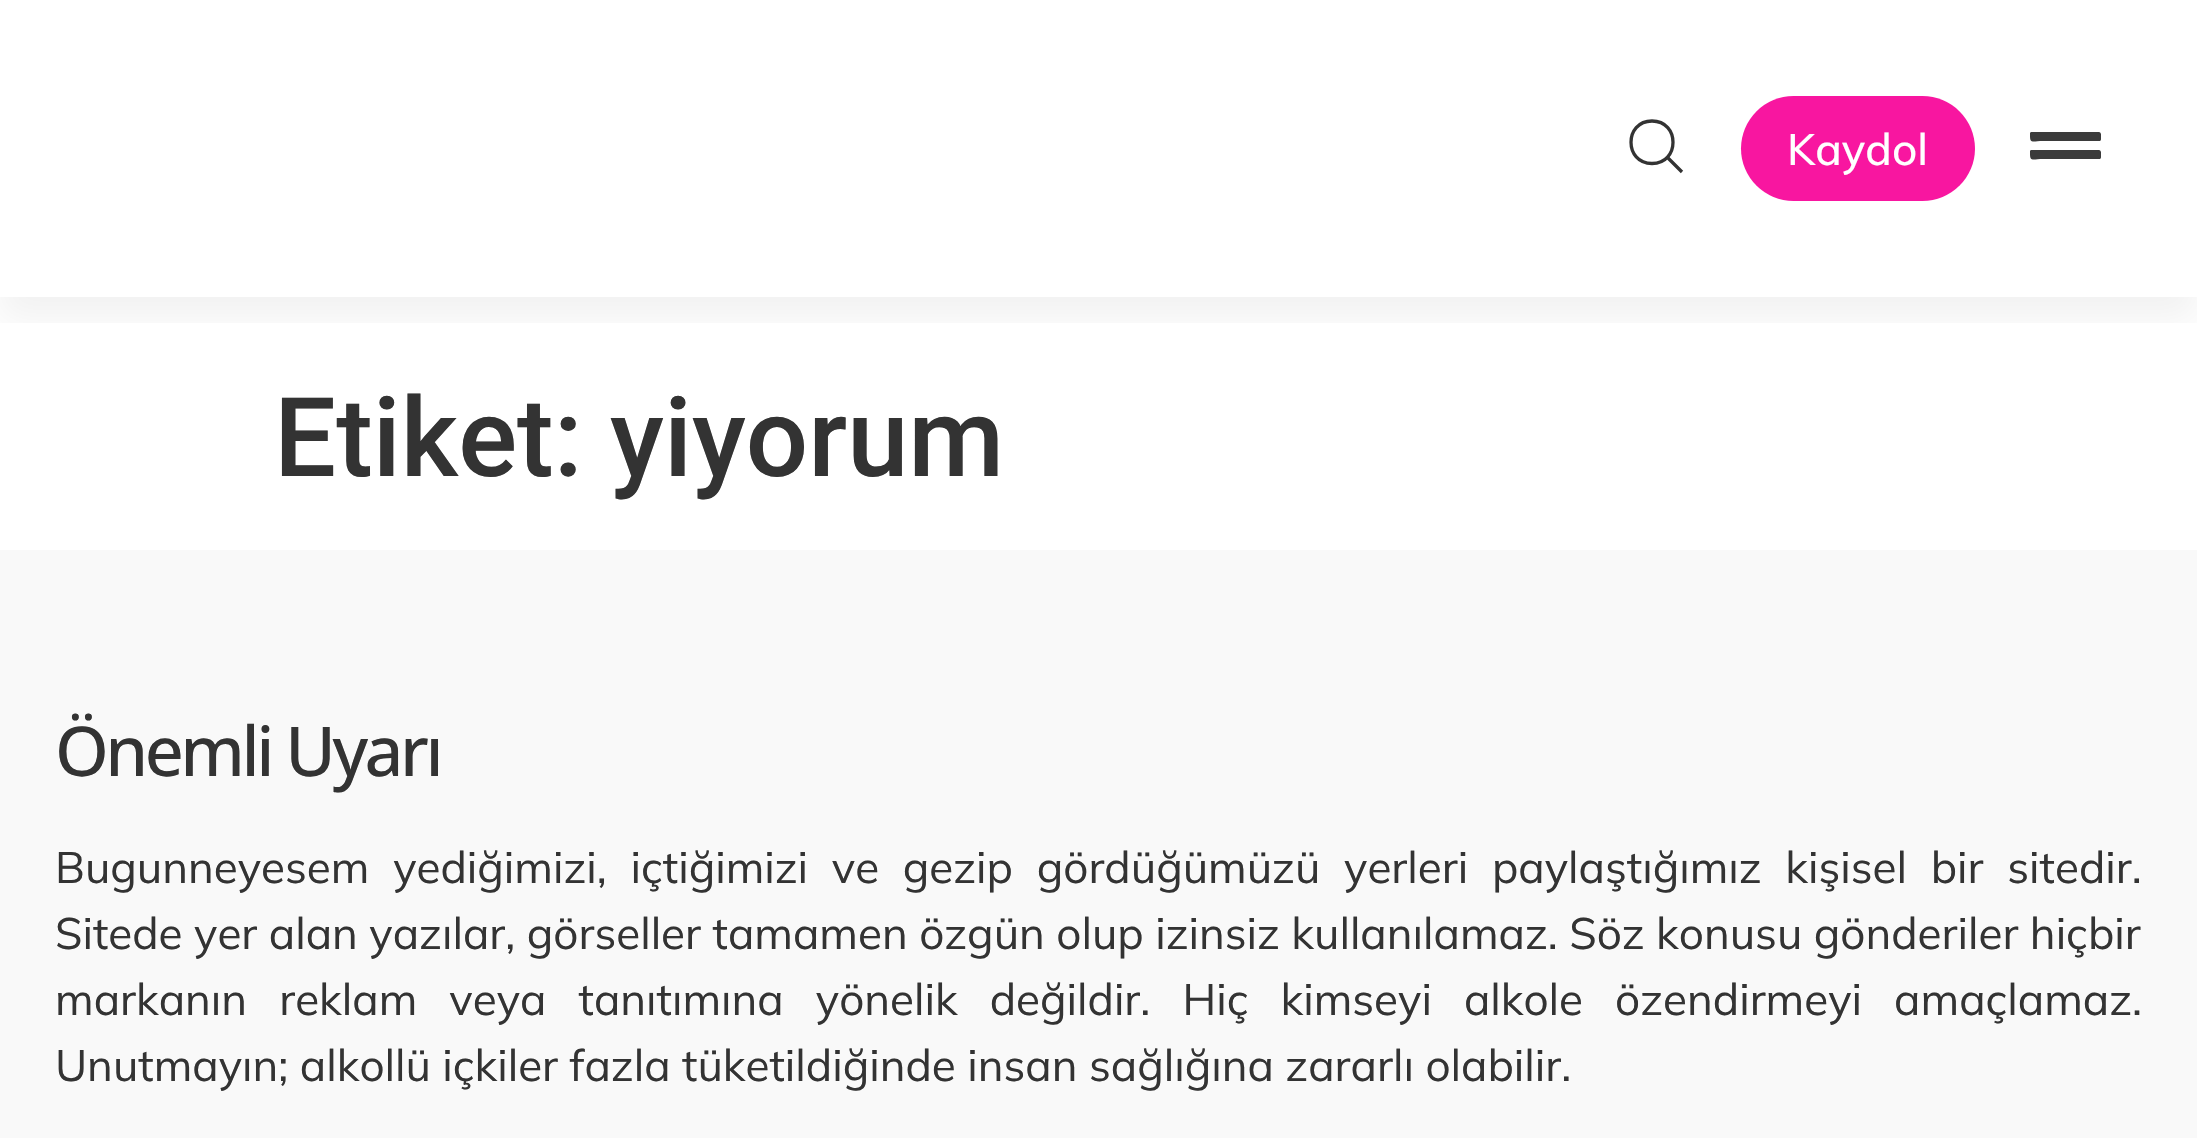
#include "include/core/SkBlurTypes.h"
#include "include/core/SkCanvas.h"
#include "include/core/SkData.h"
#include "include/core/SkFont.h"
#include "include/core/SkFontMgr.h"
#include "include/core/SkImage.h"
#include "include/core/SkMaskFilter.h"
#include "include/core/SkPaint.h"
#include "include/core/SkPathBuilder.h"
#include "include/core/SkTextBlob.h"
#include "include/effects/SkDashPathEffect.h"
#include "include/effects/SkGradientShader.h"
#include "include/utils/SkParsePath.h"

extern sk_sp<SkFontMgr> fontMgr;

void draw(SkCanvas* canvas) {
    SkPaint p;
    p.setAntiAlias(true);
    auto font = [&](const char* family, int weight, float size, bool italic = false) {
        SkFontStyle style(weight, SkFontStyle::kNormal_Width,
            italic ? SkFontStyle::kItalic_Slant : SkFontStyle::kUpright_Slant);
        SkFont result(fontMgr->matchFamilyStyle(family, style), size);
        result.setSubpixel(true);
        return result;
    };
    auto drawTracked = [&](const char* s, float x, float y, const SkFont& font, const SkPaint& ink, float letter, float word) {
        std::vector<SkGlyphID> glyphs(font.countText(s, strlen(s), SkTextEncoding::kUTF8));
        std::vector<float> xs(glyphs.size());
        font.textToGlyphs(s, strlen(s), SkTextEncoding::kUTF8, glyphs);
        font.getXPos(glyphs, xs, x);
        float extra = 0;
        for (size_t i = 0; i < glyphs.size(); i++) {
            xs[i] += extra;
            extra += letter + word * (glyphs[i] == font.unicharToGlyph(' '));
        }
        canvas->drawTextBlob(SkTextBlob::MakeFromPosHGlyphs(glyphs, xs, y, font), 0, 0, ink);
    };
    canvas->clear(0xFFFFFFFF);
    canvas->save();
    canvas->clipRect(SkRect::MakeLTRB(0, 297, 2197, 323));
    p.setColor(0x0D000000);
    p.setMaskFilter(SkMaskFilter::MakeBlur(kNormal_SkBlurStyle, 16.5f));
    canvas->drawRect(SkRect::MakeLTRB(0, 22, 2197, 319), p);
    p.setMaskFilter(nullptr);
    canvas->restore();
    p.setStyle(SkPaint::kStroke_Style);
    p.setStrokeWidth(3.3f);
    p.setStrokeJoin(SkPaint::kRound_Join);
    p.setColor(0xFF333333);
    canvas->drawPath(SkPathBuilder().moveTo(1652, 163.5f).cubicTo(1680, 163.5f, 1680, 121, 1652, 121).cubicTo(1624, 121, 1624, 163.5f, 1652, 163.5f).close().detach(), p);
    p.setStrokeJoin(SkPaint::kMiter_Join);
    canvas->drawPath(SkPathBuilder().moveTo(1668, 158).lineTo(1682, 172).close().detach(), p);
    p.setStyle(SkPaint::kFill_Style);
    p.setColor(0xFFF816A0);
    canvas->drawRoundRect(SkRect::MakeLTRB(1741, 96, 1975, 201), 52.5f, 52.5f, p);
    auto font1 = font("Mulish", 500, 44);
    p.setColor(0xFFFFFFFF);
    canvas->drawString("Kaydol", 1787, 165, font1, p);
    canvas->save();
    canvas->clipRect(SkRect::MakeLTRB(2030, 110, 2101, 182));
    p.setColor(0xFF3B3B3B);
    canvas->drawPath(SkPathBuilder().moveTo(2099, 150).lineTo(2031, 150).cubicTo(2029, 151, 2030, 152, 2030, 154).cubicTo(2030, 162, 2033, 159, 2043, 159).lineTo(2100, 159).cubicTo(2102, 158, 2102, 150, 2099, 150).close().moveTo(2099, 132).lineTo(2031, 132).cubicTo(2029, 133, 2030, 135, 2030, 136).cubicTo(2030, 144, 2033, 141, 2043, 141).lineTo(2100, 141).cubicTo(2102, 140, 2102, 132, 2099, 132).close().detach(), p);
    canvas->restore();
    auto font2 = font("Roboto", 500, 110);
    p.setColor(0xFF333333);
    canvas->drawString("Etiket: yiyorum", 274, 476, font2, p);
    p.setColor(0xFFF9F9F9);
    canvas->drawRect(SkRect::MakeLTRB(0, 550, 2197, 1138), p);
    auto font3 = font("Open Sans", 500, 68.75f);
    p.setColor(0xFF333333);
    drawTracked("Önemli Uyarı", 55, 776, font3, p, -3.5f, 0);
    auto font4 = font("Mulish", 400, 44);
    drawTracked("Bugunneyesem yediğimizi, içtiğimizi ve gezip gördüğümüzü yerleri paylaştığımız kişisel bir sitedir.", 55, 883, font4, p, 0, 12.25f);
    canvas->drawString("Sitede yer alan yazılar, görseller tamamen özgün olup izinsiz kullanılamaz. Söz konusu gönderiler hiçbir", 55, 949, font4, p);
    drawTracked("markanın reklam veya tanıtımına yönelik değildir. Hiç kimseyi alkole özendirmeyi amaçlamaz.", 55, 1015, font4, p, 0, 20.6f);
    canvas->drawString("Unutmayın; alkollü içkiler fazla tüketildiğinde insan sağlığına zararlı olabilir.", 55, 1081, font4, p);
}
